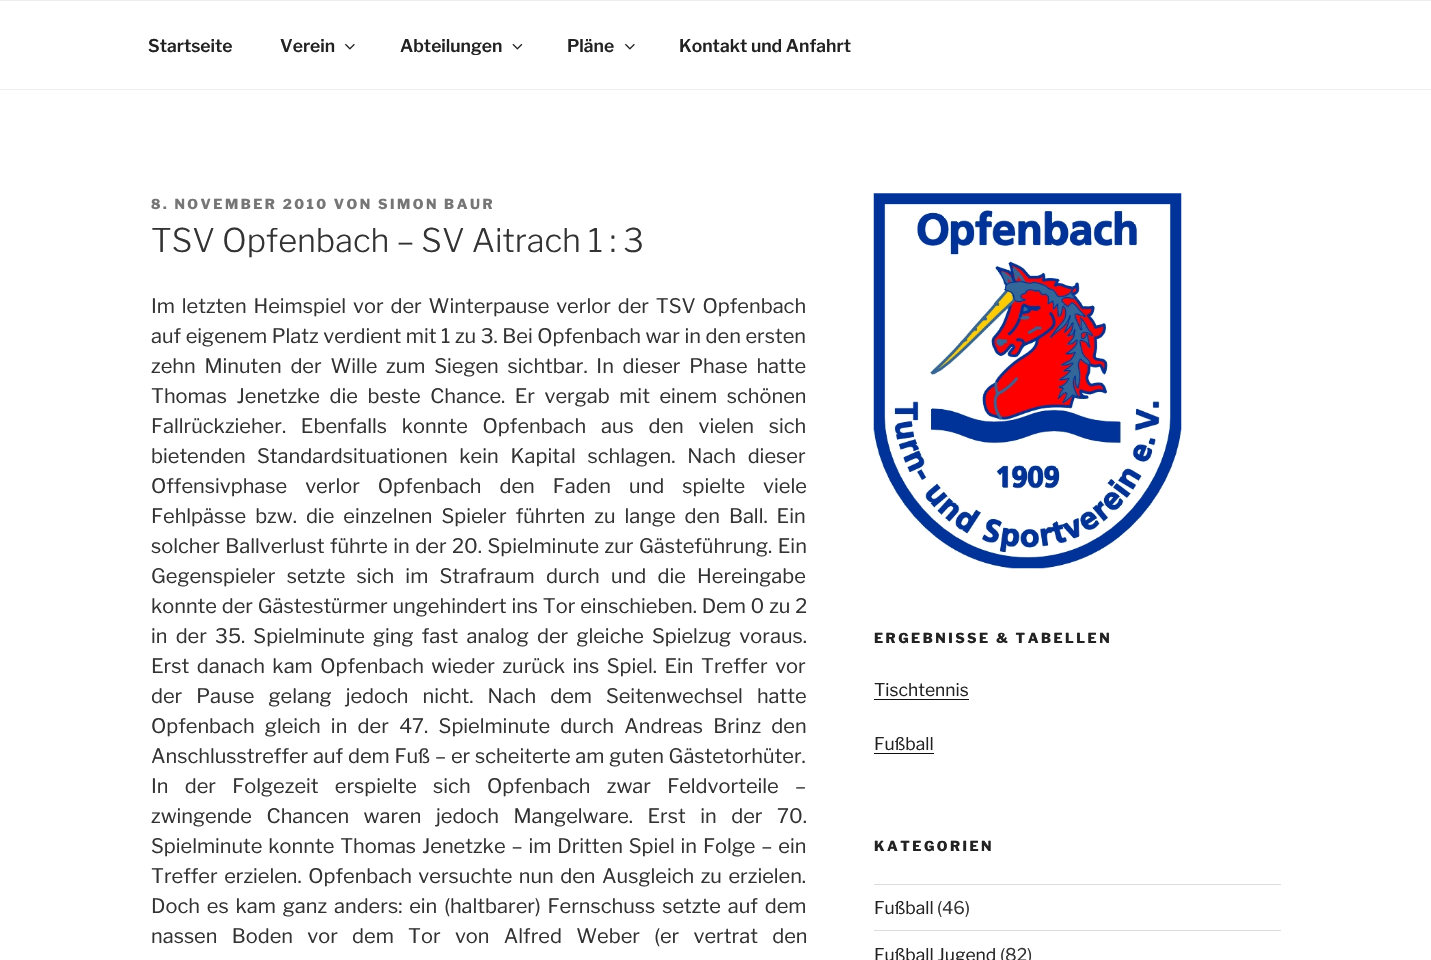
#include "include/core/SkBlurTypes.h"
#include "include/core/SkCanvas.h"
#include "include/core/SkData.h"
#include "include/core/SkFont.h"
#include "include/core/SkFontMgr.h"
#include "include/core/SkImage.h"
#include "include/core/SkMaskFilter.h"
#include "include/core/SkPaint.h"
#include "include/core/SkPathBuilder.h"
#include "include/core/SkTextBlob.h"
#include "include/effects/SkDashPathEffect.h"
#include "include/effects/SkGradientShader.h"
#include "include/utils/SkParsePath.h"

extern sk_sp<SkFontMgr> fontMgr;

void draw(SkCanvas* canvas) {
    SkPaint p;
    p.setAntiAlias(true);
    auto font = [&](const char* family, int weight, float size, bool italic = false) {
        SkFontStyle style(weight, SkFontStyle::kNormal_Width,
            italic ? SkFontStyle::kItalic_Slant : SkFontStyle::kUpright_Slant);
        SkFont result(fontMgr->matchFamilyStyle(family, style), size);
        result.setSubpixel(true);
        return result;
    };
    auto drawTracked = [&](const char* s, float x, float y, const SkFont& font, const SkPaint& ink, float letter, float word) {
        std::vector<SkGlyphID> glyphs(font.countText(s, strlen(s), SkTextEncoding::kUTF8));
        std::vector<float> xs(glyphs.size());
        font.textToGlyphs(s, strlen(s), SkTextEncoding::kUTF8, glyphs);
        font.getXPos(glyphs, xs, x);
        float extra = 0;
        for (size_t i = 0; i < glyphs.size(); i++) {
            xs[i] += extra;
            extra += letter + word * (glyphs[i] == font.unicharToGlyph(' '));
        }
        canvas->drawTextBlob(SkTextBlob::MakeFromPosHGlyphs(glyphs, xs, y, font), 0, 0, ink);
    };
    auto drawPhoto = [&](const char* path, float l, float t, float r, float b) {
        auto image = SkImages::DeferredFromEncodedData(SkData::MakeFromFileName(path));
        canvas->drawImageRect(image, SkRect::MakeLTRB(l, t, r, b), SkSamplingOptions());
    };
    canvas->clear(0xFFFFFFFF);
    p.setColor(0xFFEEEEEE);
    canvas->drawRect(SkRect::MakeLTRB(0, 0, 1431, 1), p);
    canvas->drawRect(SkRect::MakeLTRB(0, 89, 1431, 90), p);
    auto font1 = font("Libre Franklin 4", 100, 17.5f);
    p.setColor(0xFF222222);
    canvas->drawString("Startseite", 148, 52, font1, p);
    canvas->drawString("Verein", 280, 52, font1, p);
    drawPhoto("media/1.png", 345, 43, 355, 50);
    canvas->drawString("Abteilungen", 400, 52, font1, p);
    drawPhoto("media/2.png", 512, 43, 523, 50);
    canvas->drawString("Pläne", 567, 52, font1, p);
    drawPhoto("media/1.png", 625, 43, 635, 50);
    canvas->drawString("Kontakt und Anfahrt", 679, 52, font1, p);
    auto font2 = font("Libre Franklin", 100, 13.75f);
    p.setColor(0xFF767676);
    drawTracked("8. NOVEMBER 2010 VON SIMON BAUR", 151, 209, font2, p, 2.5f, 0);
    auto font3 = font("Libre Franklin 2", 100, 32.5f);
    p.setColor(0xFF333333);
    canvas->drawString("TSV Opfenbach – SV Aitrach 1 : 3", 151, 252, font3, p);
    auto font4 = font("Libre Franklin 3", 100, 20);
    drawTracked("Im letzten Heimspiel vor der Winterpause verlor der TSV Opfenbach", 151, 313, font4, p, 0, 2.6f);
    drawTracked("auf eigenem Platz verdient mit 1 zu 3. Bei Opfenbach war in den ersten", 151, 343, font4, p, 0, 0.3f);
    drawTracked("zehn Minuten der Wille zum Siegen sichtbar. In dieser Phase hatte", 151, 373, font4, p, 0, 4.5f);
    drawTracked("Thomas Jenetzke die beste Chance. Er vergab mit einem schönen", 151, 403, font4, p, 0, 5.25f);
    drawTracked("Fallrückzieher. Ebenfalls konnte Opfenbach aus den vielen sich", 151, 433, font4, p, 0, 10.5f);
    canvas->drawString("bietenden", 151, 463, font4, p);
    drawTracked("Standardsituationen kein Kapital schlagen. Nach dieser", 257, 463, font4, p, 0, 7.5f);
    drawTracked("Offensivphase verlor Opfenbach den Faden und spielte viele", 151, 493, font4, p, 0, 13.75f);
    drawTracked("Fehlpässe bzw. die einzelnen Spieler führten zu lange den Ball. Ein", 151, 523, font4, p, 0, 4.75f);
    drawTracked("solcher Ballverlust führte in der 20. Spielminute zur Gästeführung. Ein", 151, 553, font4, p, 0, 1.25f);
    drawTracked("Gegenspieler setzte sich im Strafraum durch und die Hereingabe", 151, 583, font4, p, 0, 7);
    drawTracked("konnte der Gästestürmer ungehindert ins Tor einschieben. Dem 0 zu 2", 151, 613, font4, p, 0, 0.5f);
    drawTracked("in der 35. Spielminute ging fast analog der gleiche Spielzug voraus.", 151, 643, font4, p, 0, 3.9f);
    drawTracked("Erst danach kam Opfenbach wieder zurück ins Spiel. Ein Treffer vor", 151, 673, font4, p, 0, 3.25f);
    drawTracked("der Pause gelang jedoch nicht. Nach dem Seitenwechsel hatte", 151, 703, font4, p, 0, 9.75f);
    drawTracked("Opfenbach gleich in der 47. Spielminute durch Andreas Brinz den", 151, 733, font4, p, 0, 6);
    drawTracked("Anschlusstreffer auf dem Fuß – er scheiterte am guten Gästetorhüter.", 151, 763, font4, p, 0, 0.5f);
    drawTracked("In der Folgezeit erspielte sich Opfenbach zwar Feldvorteile –", 151, 793, font4, p, 0, 12);
    drawTracked("zwingende Chancen waren jedoch Mangelware. Erst in der 70.", 151, 823, font4, p, 0, 10.25f);
    drawTracked("Spielminute konnte Thomas Jenetzke – im Dritten Spiel in Folge – ein", 151, 853, font4, p, 0, 1.6f);
    drawTracked("Treffer erzielen. Opfenbach versuchte nun den Ausgleich zu erzielen.", 151, 883, font4, p, 0, 2.25f);
    drawTracked("Doch es kam ganz anders: ein (haltbarer) Fernschuss setzte auf dem", 151, 913, font4, p, 0, 2.6f);
    drawTracked("nassen Boden vor dem Tor von Alfred Weber (er vertrat den", 151, 943, font4, p, 0, 10);
    drawPhoto("media/3.png", 873, 193, 1182, 569);
    p.setColor(0xFF222222);
    drawTracked("ERGEBNISSE & TABELLEN", 874, 643, font2, p, 2.5f, 0);
    auto font5 = font("Libre Franklin 3", 100, 17.5f);
    canvas->drawString("Tischtennis", 874, 696, font5, p);
    p.setColor(0xFF0F0F0F);
    canvas->drawRect(SkRect::MakeLTRB(874, 699, 969, 700), p);
    p.setColor(0xFF222222);
    canvas->drawString("Fußball", 874, 750, font5, p);
    p.setColor(0xFF0F0F0F);
    canvas->drawRect(SkRect::MakeLTRB(874, 753, 934, 754), p);
    p.setColor(0xFF222222);
    drawTracked("KATEGORIEN", 874, 851, font2, p, 2.5f, 0);
    p.setColor(0xFFDDDDDD);
    canvas->drawRect(SkRect::MakeLTRB(874, 884, 1281, 885), p);
    canvas->drawRect(SkRect::MakeLTRB(874, 930, 1281, 931), p);
    p.setColor(0xFF222222);
    canvas->drawString("Fußball", 874, 914, font5, p);
    p.setColor(0xFF333333);
    canvas->drawString("(46)", 937, 914, font5, p);
    p.setColor(0xFF222222);
    canvas->drawString("Fußball Jugend", 874, 961, font5, p);
    p.setColor(0xFF333333);
    canvas->drawString("(82)", 1000, 961, font5, p);
}
